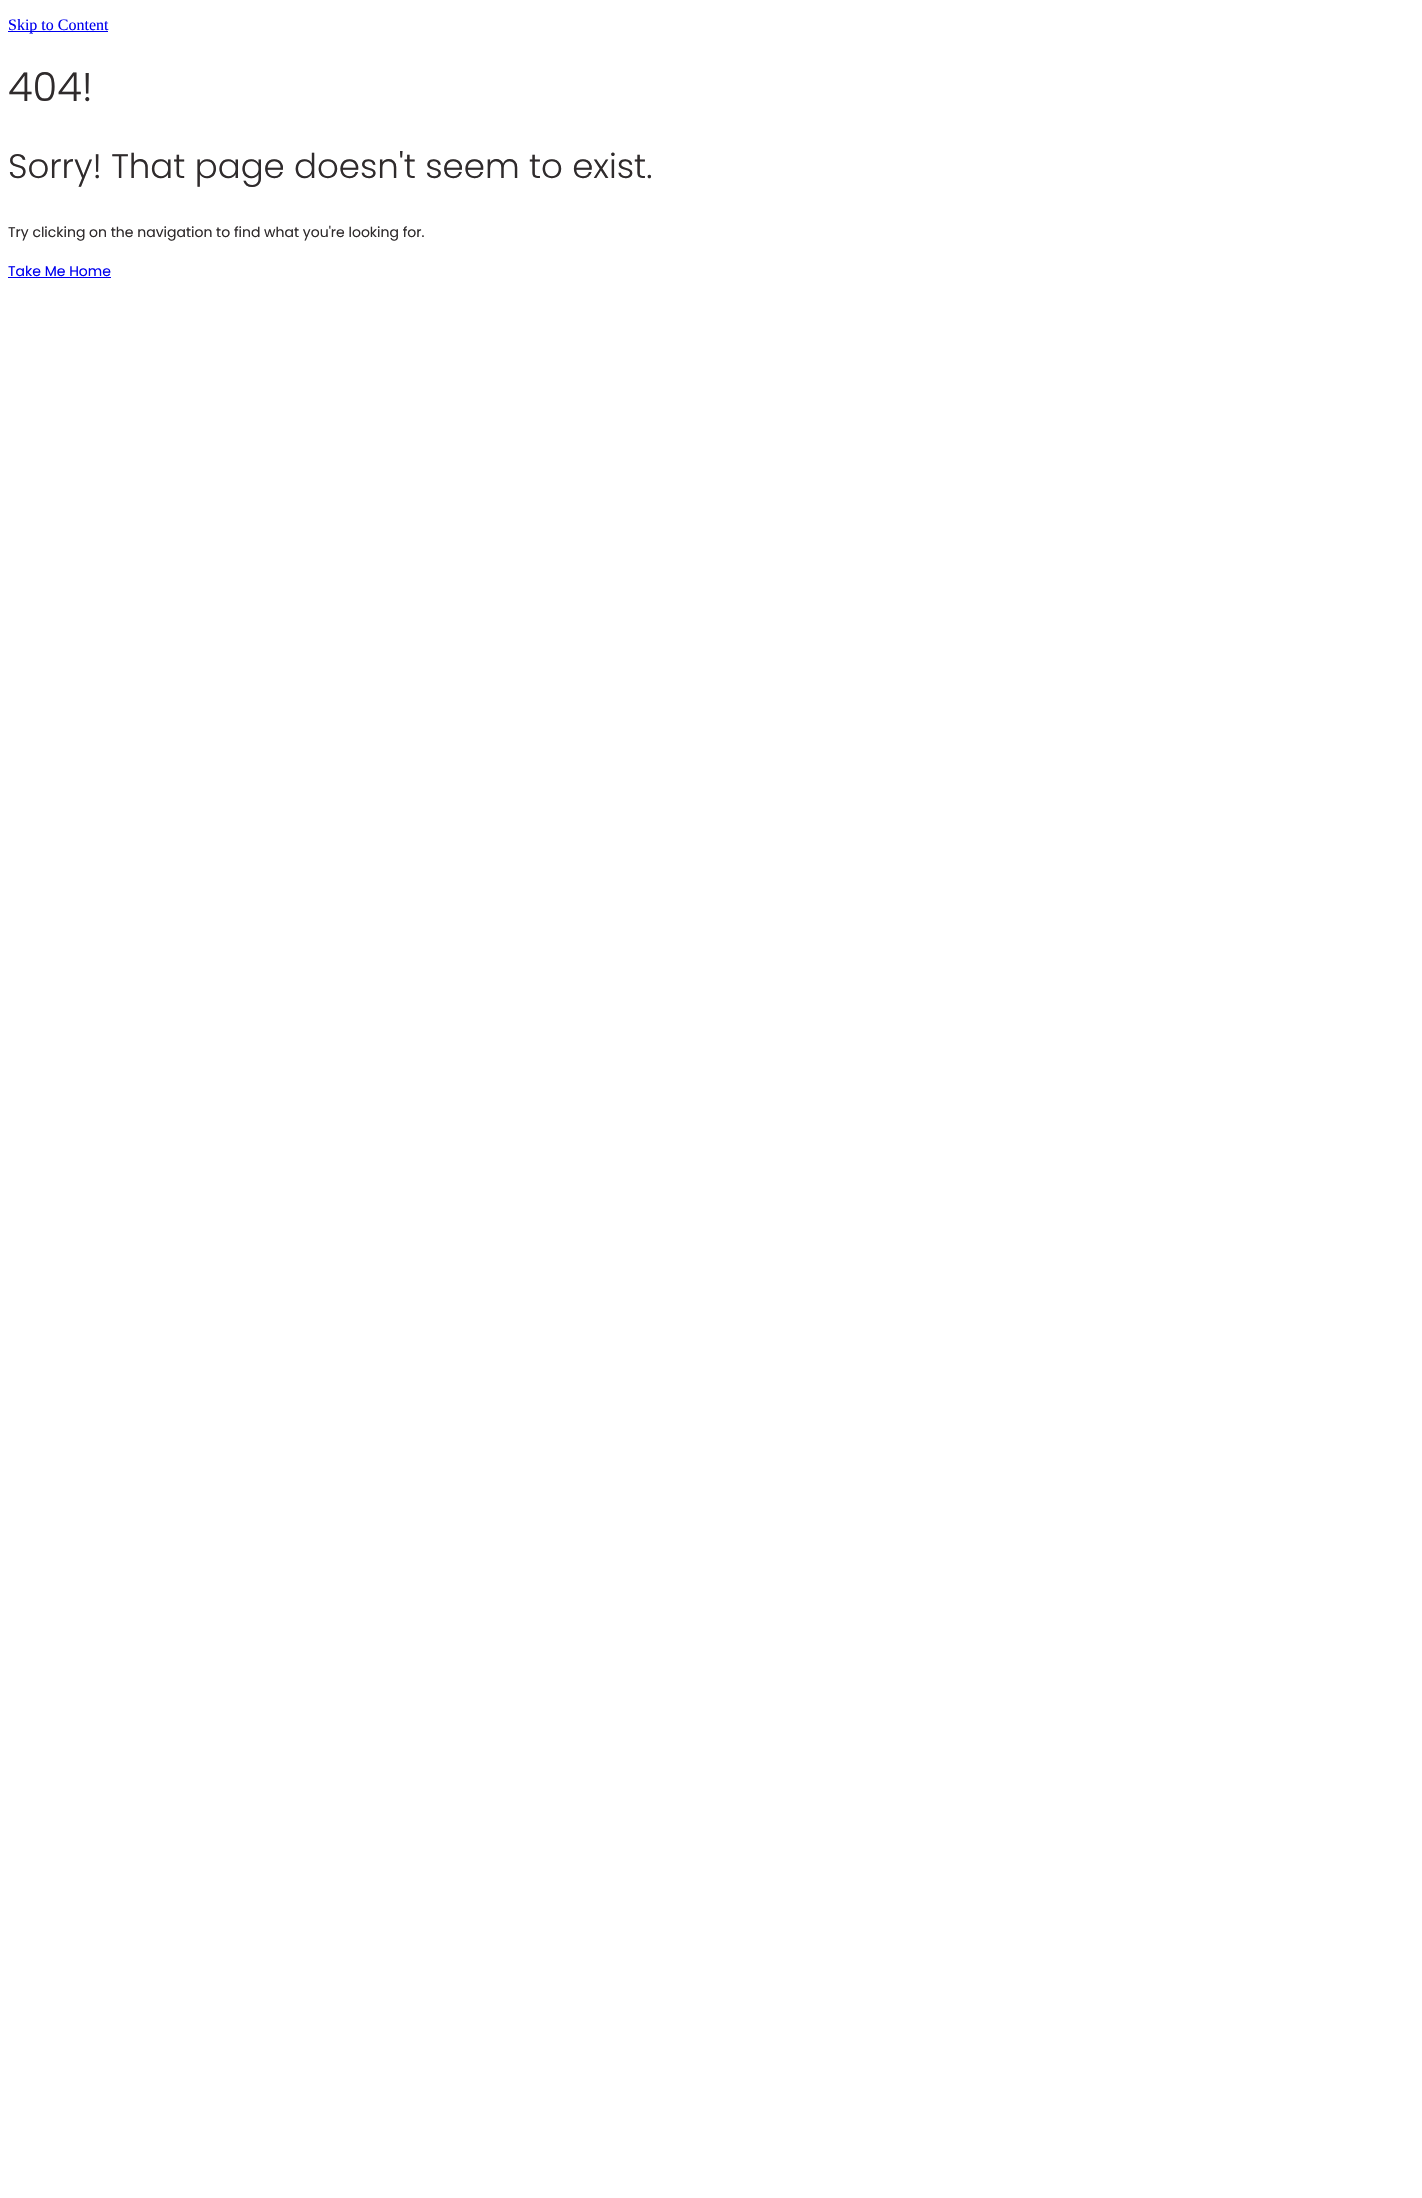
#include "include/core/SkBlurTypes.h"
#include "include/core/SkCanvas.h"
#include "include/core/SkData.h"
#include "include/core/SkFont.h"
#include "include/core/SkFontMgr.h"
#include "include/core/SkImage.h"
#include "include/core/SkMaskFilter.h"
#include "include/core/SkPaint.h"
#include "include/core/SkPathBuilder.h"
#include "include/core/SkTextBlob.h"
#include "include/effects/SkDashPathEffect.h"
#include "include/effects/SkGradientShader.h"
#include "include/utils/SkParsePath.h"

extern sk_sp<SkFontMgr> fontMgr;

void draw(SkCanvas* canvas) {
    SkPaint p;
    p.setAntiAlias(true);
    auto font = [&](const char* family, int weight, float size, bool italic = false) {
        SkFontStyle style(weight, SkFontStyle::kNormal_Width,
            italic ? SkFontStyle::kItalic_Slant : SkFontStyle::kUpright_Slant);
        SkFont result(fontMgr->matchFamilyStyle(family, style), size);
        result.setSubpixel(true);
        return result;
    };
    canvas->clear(0xFFFFFFFF);
    p.setColor(0xFF0000EE);
    canvas->drawRect(SkRect::MakeLTRB(8, 31, 108, 32), p);
    auto font1 = font("Liberation Serif", 400, 16);
    canvas->drawString("Skip to Content", 8, 30, font1, p);
    auto font2 = font("Poppins", 300, 40);
    p.setColor(0xFF2F2B2C);
    canvas->drawString("404!", 8, 101, font2, p);
    auto font3 = font("Poppins", 300, 34);
    canvas->drawString("Sorry! That page doesn't seem to exist.", 8, 178, font3, p);
    auto font4 = font("Poppins", 400, 14);
    canvas->drawString("Try clicking on the navigation to find what you're looking for.", 8, 237, font4, p);
    p.setColor(0xFF0000EE);
    canvas->drawString("Take Me Home", 8, 276, font4, p);
    canvas->drawRect(SkRect::MakeLTRB(8, 277, 111, 278), p);
}
